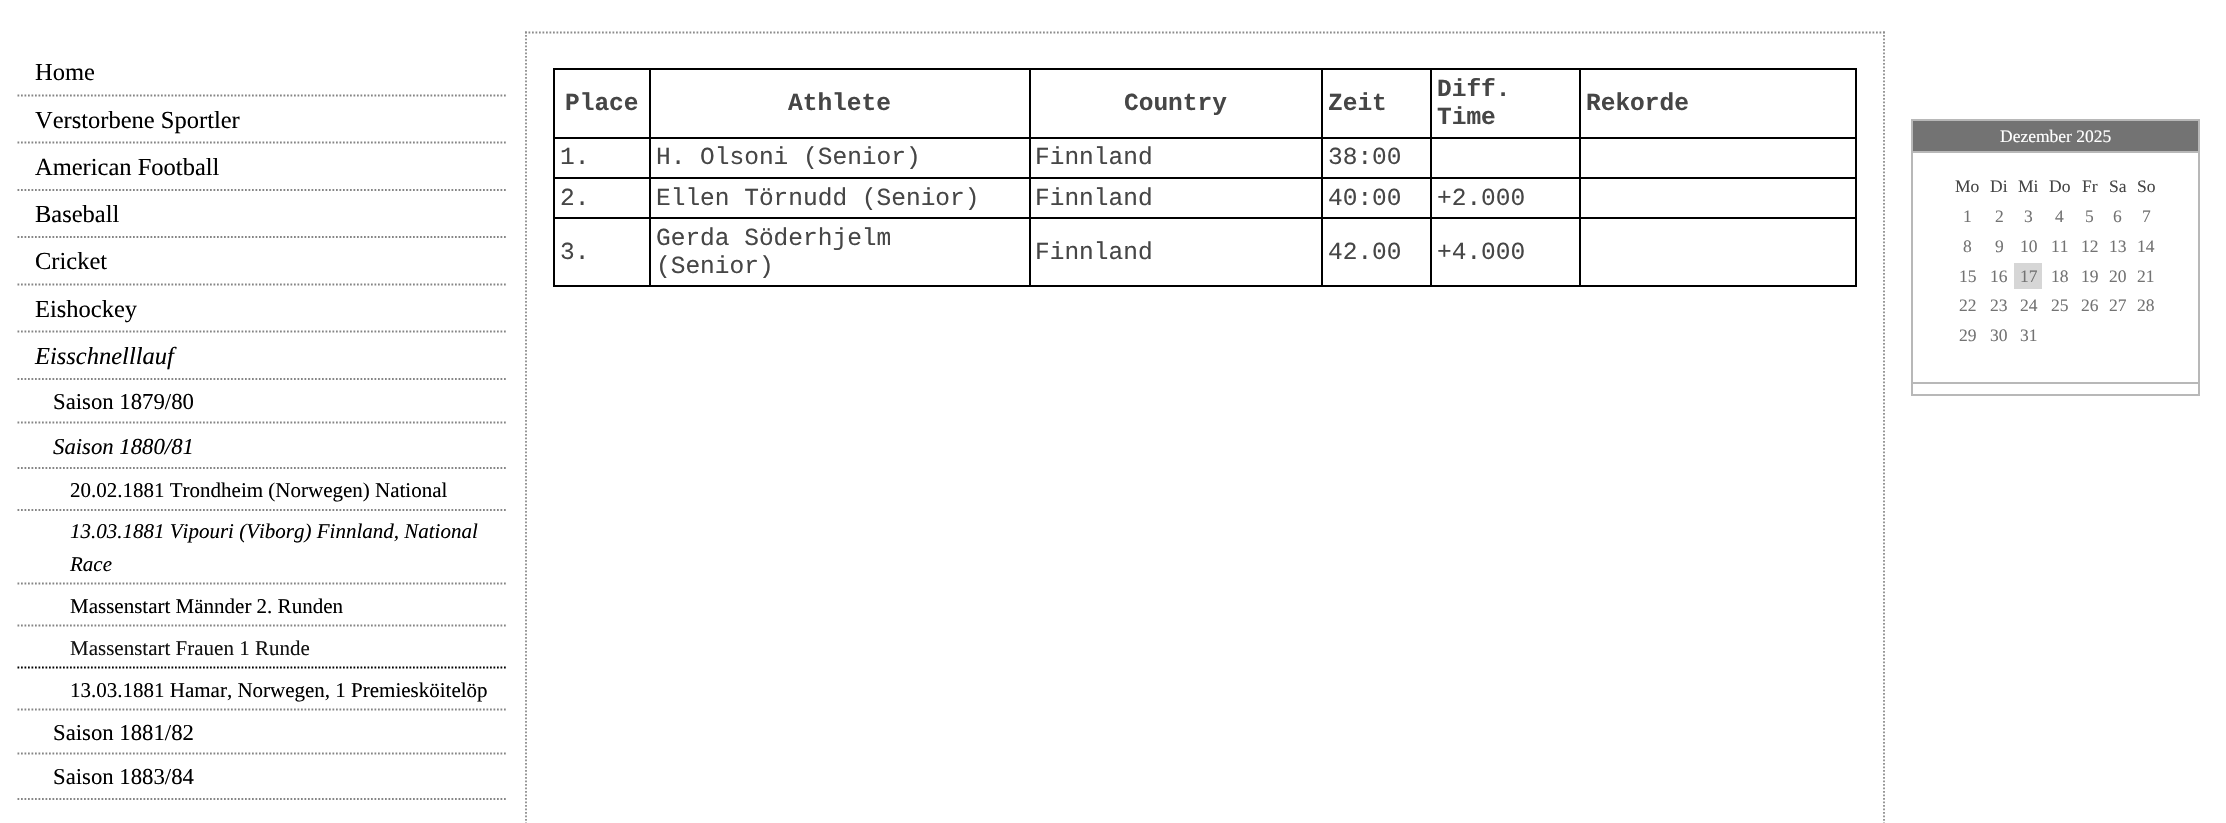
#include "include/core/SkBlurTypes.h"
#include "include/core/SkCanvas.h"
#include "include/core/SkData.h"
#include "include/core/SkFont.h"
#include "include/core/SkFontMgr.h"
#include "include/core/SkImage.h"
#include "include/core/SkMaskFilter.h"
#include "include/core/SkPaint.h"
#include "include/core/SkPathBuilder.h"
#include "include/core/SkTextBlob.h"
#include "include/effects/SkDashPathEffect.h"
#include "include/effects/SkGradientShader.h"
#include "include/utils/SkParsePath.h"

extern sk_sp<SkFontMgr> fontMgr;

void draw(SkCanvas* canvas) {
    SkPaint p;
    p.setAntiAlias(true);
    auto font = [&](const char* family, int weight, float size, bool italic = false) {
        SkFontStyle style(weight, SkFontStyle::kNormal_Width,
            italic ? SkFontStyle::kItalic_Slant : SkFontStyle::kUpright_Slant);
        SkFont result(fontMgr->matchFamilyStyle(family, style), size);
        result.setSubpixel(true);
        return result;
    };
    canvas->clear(0xFFFFFFFF);
    p.setStyle(SkPaint::kStroke_Style);
    p.setStrokeWidth(1.8f);
    p.setColor(0xFF858585);
    p.setPathEffect(SkDashPathEffect::Make({{1.75f, 1.75f}}, 0));
    canvas->drawPath(SkPathBuilder().moveTo(17.5f, 95.5f).lineTo(507.5f, 95.5f).detach(), p);
    p.setPathEffect(nullptr);
    auto font1 = font("Liberation Serif", 400, 24.5f);
    p.setStyle(SkPaint::kFill_Style);
    p.setColor(0xFF000000);
    canvas->drawString("Home", 35, 80, font1, p);
    p.setStyle(SkPaint::kStroke_Style);
    p.setColor(0xFF858585);
    p.setPathEffect(SkDashPathEffect::Make({{1.75f, 1.75f}}, 0));
    canvas->drawPath(SkPathBuilder().moveTo(17.5f, 142.5f).lineTo(507.5f, 142.5f).detach(), p);
    p.setPathEffect(nullptr);
    p.setStyle(SkPaint::kFill_Style);
    p.setColor(0xFF000000);
    canvas->drawString("Verstorbene Sportler", 35, 128, font1, p);
    p.setStyle(SkPaint::kStroke_Style);
    p.setColor(0xFF858585);
    p.setPathEffect(SkDashPathEffect::Make({{1.75f, 1.75f}}, 0));
    canvas->drawPath(SkPathBuilder().moveTo(17.5f, 190).lineTo(507.5f, 190).detach(), p);
    p.setPathEffect(nullptr);
    p.setStyle(SkPaint::kFill_Style);
    p.setColor(0xFF000000);
    canvas->drawString("American Football", 35, 175, font1, p);
    p.setStyle(SkPaint::kStroke_Style);
    p.setColor(0xFF858585);
    p.setPathEffect(SkDashPathEffect::Make({{1.75f, 1.75f}}, 0));
    canvas->drawPath(SkPathBuilder().moveTo(17.5f, 237).lineTo(507.5f, 237).detach(), p);
    p.setPathEffect(nullptr);
    p.setStyle(SkPaint::kFill_Style);
    p.setColor(0xFF000000);
    canvas->drawString("Baseball", 35, 222, font1, p);
    p.setStyle(SkPaint::kStroke_Style);
    p.setColor(0xFF858585);
    p.setPathEffect(SkDashPathEffect::Make({{1.75f, 1.75f}}, 0));
    canvas->drawPath(SkPathBuilder().moveTo(17.5f, 284.5f).lineTo(507.5f, 284.5f).detach(), p);
    p.setPathEffect(nullptr);
    p.setStyle(SkPaint::kFill_Style);
    p.setColor(0xFF000000);
    canvas->drawString("Cricket", 35, 269, font1, p);
    p.setStyle(SkPaint::kStroke_Style);
    p.setColor(0xFF858585);
    p.setPathEffect(SkDashPathEffect::Make({{1.75f, 1.75f}}, 0));
    canvas->drawPath(SkPathBuilder().moveTo(17.5f, 331.5f).lineTo(507.5f, 331.5f).detach(), p);
    p.setPathEffect(nullptr);
    p.setStyle(SkPaint::kFill_Style);
    p.setColor(0xFF000000);
    canvas->drawString("Eishockey", 35, 317, font1, p);
    p.setStyle(SkPaint::kStroke_Style);
    p.setColor(0xFF858585);
    p.setPathEffect(SkDashPathEffect::Make({{1.75f, 1.75f}}, 0));
    canvas->drawPath(SkPathBuilder().moveTo(17.5f, 379).lineTo(507.5f, 379).detach(), p);
    p.setPathEffect(nullptr);
    auto font2 = font("Liberation Serif", 400, 24.5f, true);
    p.setStyle(SkPaint::kFill_Style);
    p.setColor(0xFF000000);
    canvas->drawString("Eisschnelllauf", 35, 364, font2, p);
    p.setStyle(SkPaint::kStroke_Style);
    p.setColor(0xFF858585);
    p.setPathEffect(SkDashPathEffect::Make({{1.75f, 1.75f}}, 0));
    canvas->drawPath(SkPathBuilder().moveTo(17.5f, 422.5f).lineTo(507.5f, 422.5f).detach(), p);
    p.setPathEffect(nullptr);
    auto font3 = font("Liberation Serif", 400, 22.75f);
    p.setStyle(SkPaint::kFill_Style);
    p.setColor(0xFF000000);
    canvas->drawString("Saison 1879/80", 53, 409, font3, p);
    p.setStyle(SkPaint::kStroke_Style);
    p.setColor(0xFF858585);
    p.setPathEffect(SkDashPathEffect::Make({{1.75f, 1.75f}}, 0));
    canvas->drawPath(SkPathBuilder().moveTo(17.5f, 468).lineTo(507.5f, 468).detach(), p);
    p.setPathEffect(nullptr);
    auto font4 = font("Liberation Serif", 400, 22.75f, true);
    p.setStyle(SkPaint::kFill_Style);
    p.setColor(0xFF000000);
    canvas->drawString("Saison 1880/81", 53, 454, font4, p);
    p.setStyle(SkPaint::kStroke_Style);
    p.setColor(0xFF858585);
    p.setPathEffect(SkDashPathEffect::Make({{1.75f, 1.75f}}, 0));
    canvas->drawPath(SkPathBuilder().moveTo(17.5f, 510).lineTo(507.5f, 510).detach(), p);
    p.setPathEffect(nullptr);
    auto font5 = font("Liberation Serif", 400, 21);
    p.setStyle(SkPaint::kFill_Style);
    p.setColor(0xFF000000);
    canvas->drawString("20.02.1881 Trondheim (Norwegen) National", 70, 497, font5, p);
    p.setStyle(SkPaint::kStroke_Style);
    p.setColor(0xFF858585);
    p.setPathEffect(SkDashPathEffect::Make({{1.75f, 1.75f}}, 0));
    canvas->drawPath(SkPathBuilder().moveTo(17.5f, 583.5f).lineTo(507.5f, 583.5f).detach(), p);
    p.setPathEffect(nullptr);
    auto font6 = font("Liberation Serif", 400, 21, true);
    p.setStyle(SkPaint::kFill_Style);
    p.setColor(0xFF000000);
    canvas->drawString("13.03.1881 Vipouri (Viborg) Finnland, National", 70, 538, font6, p);
    canvas->drawString("Race", 70, 571, font6, p);
    p.setStyle(SkPaint::kStroke_Style);
    p.setColor(0xFF858585);
    p.setPathEffect(SkDashPathEffect::Make({{1.75f, 1.75f}}, 0));
    canvas->drawPath(SkPathBuilder().moveTo(17.5f, 625.5f).lineTo(507.5f, 625.5f).detach(), p);
    p.setPathEffect(nullptr);
    p.setStyle(SkPaint::kFill_Style);
    p.setColor(0xFF000000);
    canvas->drawString("Massenstart Männder 2. Runden", 70, 613, font5, p);
    p.setStyle(SkPaint::kStroke_Style);
    p.setPathEffect(SkDashPathEffect::Make({{1.75f, 1.75f}}, 0));
    canvas->drawPath(SkPathBuilder().moveTo(17.5f, 667.5f).lineTo(507.5f, 667.5f).detach(), p);
    p.setPathEffect(nullptr);
    p.setStyle(SkPaint::kFill_Style);
    p.setColor(0xFF121212);
    canvas->drawString("Massenstart Frauen 1 Runde", 70, 655, font5, p);
    p.setStyle(SkPaint::kStroke_Style);
    p.setColor(0xFF858585);
    p.setPathEffect(SkDashPathEffect::Make({{1.75f, 1.75f}}, 0));
    canvas->drawPath(SkPathBuilder().moveTo(17.5f, 709.5f).lineTo(507.5f, 709.5f).detach(), p);
    p.setPathEffect(nullptr);
    p.setStyle(SkPaint::kFill_Style);
    p.setColor(0xFF000000);
    canvas->drawString("13.03.1881 Hamar, Norwegen, 1 Premiesköitelöp", 70, 697, font5, p);
    p.setStyle(SkPaint::kStroke_Style);
    p.setColor(0xFF858585);
    p.setPathEffect(SkDashPathEffect::Make({{1.75f, 1.75f}}, 0));
    canvas->drawPath(SkPathBuilder().moveTo(17.5f, 753.5f).lineTo(507.5f, 753.5f).detach(), p);
    p.setPathEffect(nullptr);
    p.setStyle(SkPaint::kFill_Style);
    p.setColor(0xFF000000);
    canvas->drawString("Saison 1881/82", 53, 740, font3, p);
    p.setStyle(SkPaint::kStroke_Style);
    p.setColor(0xFF858585);
    p.setPathEffect(SkDashPathEffect::Make({{1.75f, 1.75f}}, 0));
    canvas->drawPath(SkPathBuilder().moveTo(17.5f, 799).lineTo(507.5f, 799).detach(), p);
    p.setPathEffect(nullptr);
    p.setStyle(SkPaint::kFill_Style);
    p.setColor(0xFF000000);
    canvas->drawString("Saison 1883/84", 53, 784, font3, p);
    p.setStyle(SkPaint::kStroke_Style);
    p.setColor(0xFF8C8C8C);
    p.setPathEffect(SkDashPathEffect::Make({{1.75f, 1.75f}}, 0));
    canvas->drawPath(SkPathBuilder().moveTo(525, 32.5f).lineTo(1885, 32.5f).detach(), p);
    p.setPathEffect(nullptr);
    p.setPathEffect(SkDashPathEffect::Make({{1.75f, 1.75f}}, 0));
    canvas->drawPath(SkPathBuilder().moveTo(1884, 31.5f).lineTo(1884, 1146).detach(), p);
    p.setPathEffect(nullptr);
    p.setPathEffect(SkDashPathEffect::Make({{1.75f, 1.75f}}, 0));
    canvas->drawPath(SkPathBuilder().moveTo(526, 31.5f).lineTo(526, 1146).detach(), p);
    p.setPathEffect(nullptr);
    p.setStyle(SkPaint::kFill_Style);
    {
        const struct { float l, t, r, b; SkColor color; } items[] = {
            {553, 68, 1857, 70, 0xFF000000},
            {1855, 68, 1857, 287, 0xFF000000},
            {553, 285, 1857, 287, 0xFF000000},
            {553, 68, 555, 287, 0xFF000000},
        };
        for (auto [l, t, r, b, color] : items) {
            p.setColor(color);
            canvas->drawRect(SkRect::MakeLTRB(l, t, r, b), p);
        }
    }
    auto font7 = font("Liberation Mono", 700, 24.5f);
    p.setColor(0xFF464646);
    canvas->drawString("Place", 565, 110, font7, p);
    {
        const struct { float l, t, r, b; SkColor color; } items[] = {
            {1579, 137, 1857, 139, 0xFF000000},
            {1579, 177, 1857, 179, 0xFF000000},
            {1579, 217, 1857, 219, 0xFF000000},
            {1579, 217, 1581, 287, 0xFF000000},
            {1430, 217, 1580, 219, 0xFF000000},
            {1579, 177, 1581, 219, 0xFF000000},
            {1430, 177, 1580, 179, 0xFF000000},
            {1579, 137, 1581, 179, 0xFF000000},
            {1430, 137, 1580, 139, 0xFF000000},
            {1430, 217, 1432, 287, 0xFF000000},
            {1321, 217, 1432, 219, 0xFF000000},
            {1430, 177, 1432, 219, 0xFF000000},
            {1321, 177, 1432, 179, 0xFF000000},
            {1430, 137, 1432, 179, 0xFF000000},
            {1321, 137, 1432, 139, 0xFF000000},
            {1321, 217, 1323, 287, 0xFF000000},
            {1029, 217, 1323, 219, 0xFF000000},
            {1321, 177, 1323, 219, 0xFF000000},
            {1029, 177, 1323, 179, 0xFF000000},
            {1321, 137, 1323, 179, 0xFF000000},
            {1029, 137, 1323, 139, 0xFF000000},
            {1029, 217, 1031, 287, 0xFF000000},
            {649, 217, 1031, 219, 0xFF000000},
            {1029, 177, 1031, 219, 0xFF000000},
            {649, 177, 1031, 179, 0xFF000000},
            {1029, 137, 1031, 179, 0xFF000000},
            {649, 137, 1031, 139, 0xFF000000},
            {649, 217, 651, 287, 0xFF000000},
            {553, 217, 651, 219, 0xFF000000},
            {649, 177, 651, 219, 0xFF000000},
            {553, 177, 651, 179, 0xFF000000},
            {649, 137, 651, 179, 0xFF000000},
            {553, 137, 651, 139, 0xFF000000},
            {649, 68, 651, 138, 0xFF000000},
        };
        for (auto [l, t, r, b, color] : items) {
            p.setColor(color);
            canvas->drawRect(SkRect::MakeLTRB(l, t, r, b), p);
        }
    }
    p.setColor(0xFF464646);
    canvas->drawString("Athlete", 788, 110, font7, p);
    p.setColor(0xFF000000);
    canvas->drawRect(SkRect::MakeLTRB(1029, 68, 1031, 138), p);
    p.setColor(0xFF464646);
    canvas->drawString("Country", 1124, 110, font7, p);
    p.setColor(0xFF000000);
    canvas->drawRect(SkRect::MakeLTRB(1321, 68, 1323, 138), p);
    p.setColor(0xFF464646);
    canvas->drawString("Zeit", 1328, 110, font7, p);
    p.setColor(0xFF000000);
    canvas->drawRect(SkRect::MakeLTRB(1430, 68, 1432, 138), p);
    p.setColor(0xFF464646);
    canvas->drawString("Diff.", 1437, 96, font7, p);
    canvas->drawString("Time", 1437, 124, font7, p);
    p.setColor(0xFF000000);
    canvas->drawRect(SkRect::MakeLTRB(1579, 68, 1581, 138), p);
    p.setColor(0xFF464646);
    canvas->drawString("Rekorde", 1586, 110, font7, p);
    auto font8 = font("Liberation Mono", 400, 24.5f);
    {
        const struct { const char* s; float x, y; } items[] = {
            {"1.", 560, 164},
            {"H. Olsoni (Senior)", 656, 164},
            {"Finnland", 1035, 164},
            {"38:00", 1328, 164},
            {"2.", 560, 205},
            {"Ellen Törnudd (Senior)", 656, 205},
            {"Finnland", 1035, 205},
            {"40:00", 1328, 205},
            {"+2.000", 1437, 205},
            {"3.", 560, 259},
            {"Gerda Söderhjelm", 656, 245},
            {"(Senior)", 656, 273},
            {"Finnland", 1035, 259},
            {"42.00", 1328, 259},
            {"+4.000", 1437, 259},
        };
        for (auto [s, x, y] : items) {
            canvas->drawString(s, x, y, font8, p);
        }
    }
    p.setStyle(SkPaint::kStroke_Style);
    p.setStrokeWidth(2);
    p.setColor(0xFFB8B8B8);
    canvas->drawRect(SkRect::MakeLTRB(1912, 120, 2199, 395), p);
    p.setStyle(SkPaint::kFill_Style);
    p.setColor(0xFF737373);
    canvas->drawRect(SkRect::MakeLTRB(1913, 121, 2198, 151), p);
    p.setColor(0xFFB8B8B8);
    canvas->drawRect(SkRect::MakeLTRB(1913, 151, 2198, 153), p);
    auto font9 = font("Liberation Serif", 400, 17.5f);
    p.setColor(0xFFFFFFFF);
    canvas->drawString("Dezember 2025", 2000, 142, font9, p);
    p.setColor(0xFFB8B8B8);
    canvas->drawRect(SkRect::MakeLTRB(1913, 382, 2198, 384), p);
    p.setColor(0xFF464646);
    {
        const struct { const char* s; float x, y; } items[] = {
            {"Mo", 1955, 192},
            {"Di", 1990, 192},
            {"Mi", 2018, 192},
            {"Do", 2049, 192},
            {"Fr", 2082, 192},
            {"Sa", 2109, 192},
            {"So", 2137, 192},
        };
        for (auto [s, x, y] : items) {
            canvas->drawString(s, x, y, font9, p);
        }
    }
    p.setColor(0xFF737373);
    {
        const struct { const char* s; float x, y; } items[] = {
            {"1", 1963, 222},
            {"2", 1995, 222},
            {"3", 2024, 222},
            {"4", 2055, 222},
            {"5", 2085, 222},
            {"6", 2113, 222},
            {"7", 2142, 222},
            {"8", 1963, 252},
            {"9", 1995, 252},
            {"10", 2020, 252},
            {"11", 2051, 252},
            {"12", 2081, 252},
            {"13", 2109, 252},
            {"14", 2137, 252},
            {"15", 1959, 282},
            {"16", 1990, 282},
        };
        for (auto [s, x, y] : items) {
            canvas->drawString(s, x, y, font9, p);
        }
    }
    p.setColor(0xFFD6D6D6);
    canvas->drawRect(SkRect::MakeLTRB(2014, 263, 2042, 289), p);
    p.setColor(0xFF737373);
    {
        const struct { const char* s; float x, y; } items[] = {
            {"17", 2020, 282},
            {"18", 2051, 282},
            {"19", 2081, 282},
            {"20", 2109, 282},
            {"21", 2137, 282},
            {"22", 1959, 311},
            {"23", 1990, 311},
            {"24", 2020, 311},
            {"25", 2051, 311},
            {"26", 2081, 311},
            {"27", 2109, 311},
            {"28", 2137, 311},
            {"29", 1959, 341},
            {"30", 1990, 341},
            {"31", 2020, 341},
        };
        for (auto [s, x, y] : items) {
            canvas->drawString(s, x, y, font9, p);
        }
    }
}
